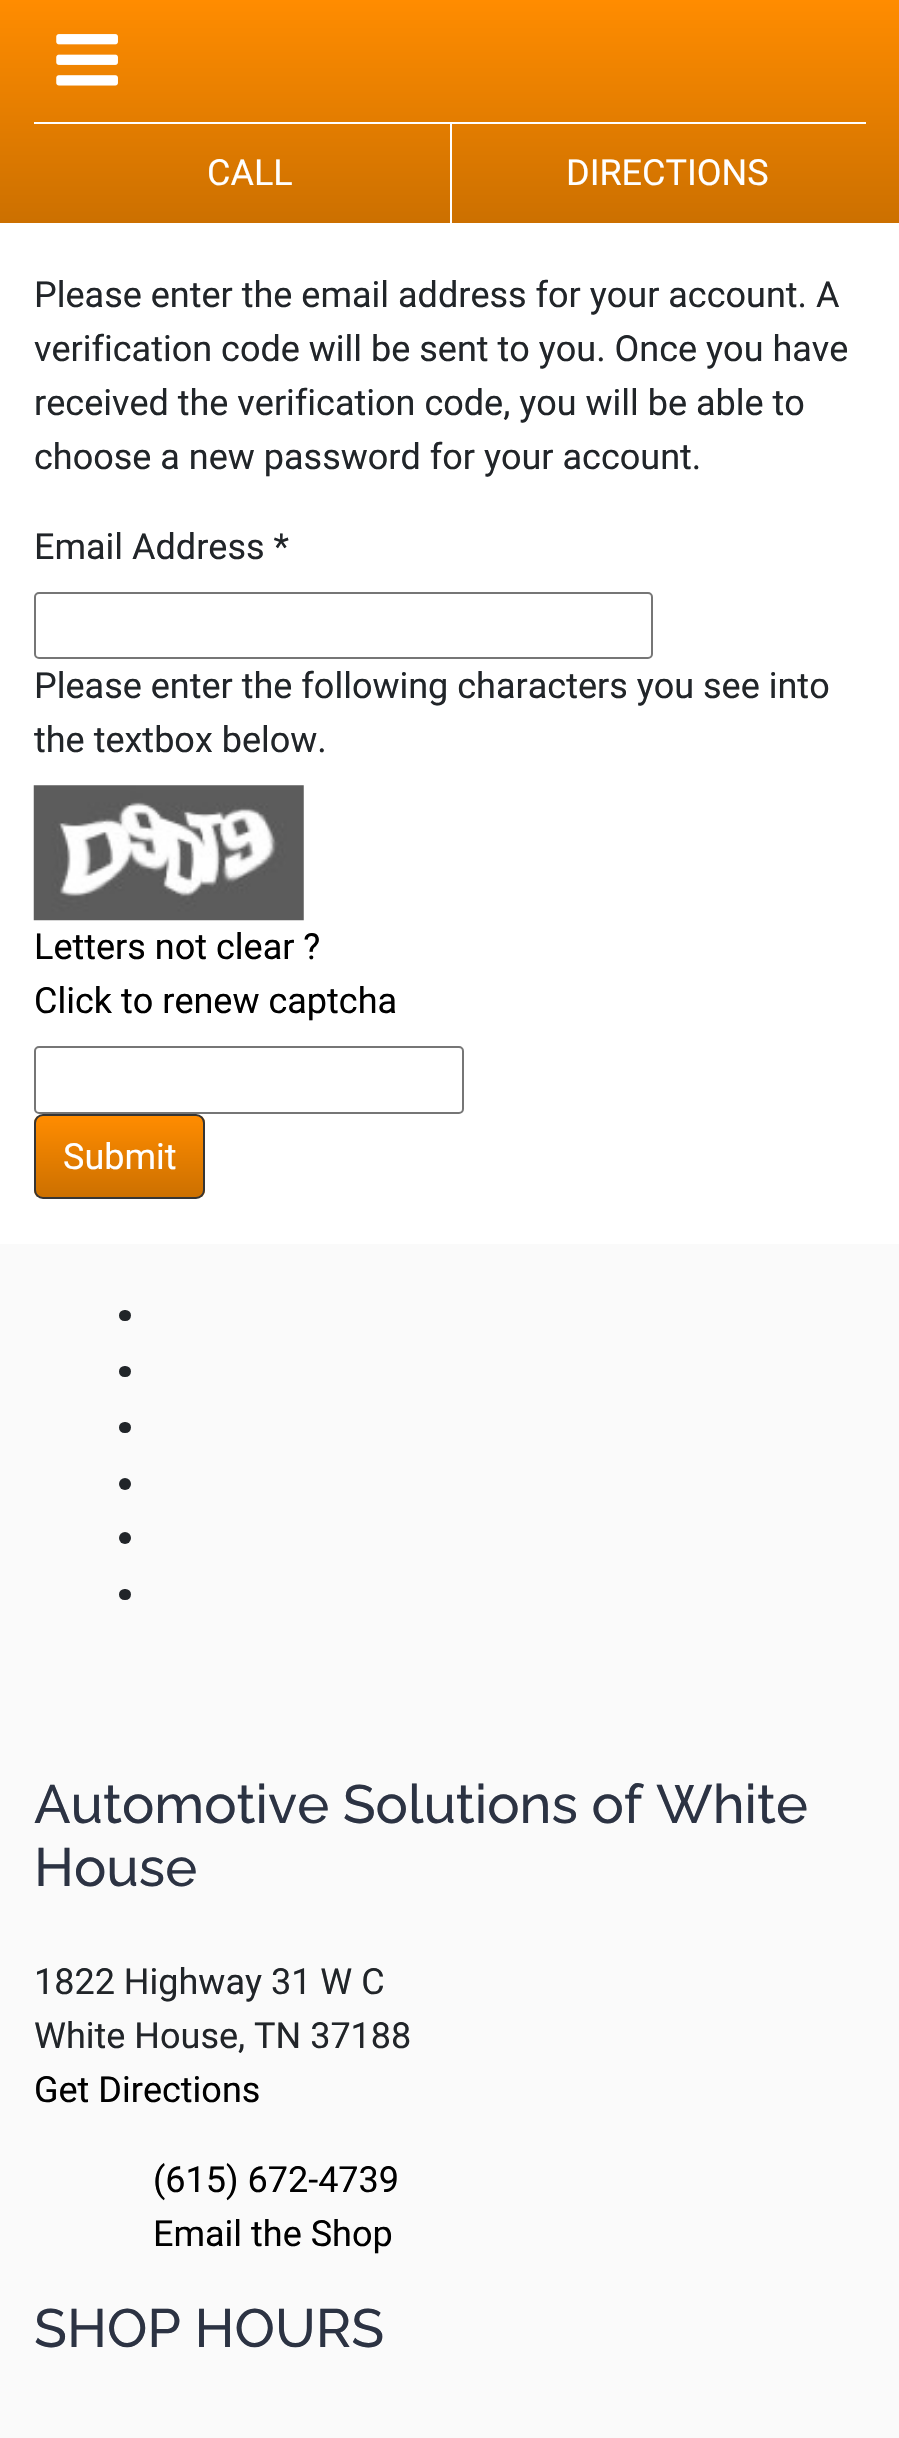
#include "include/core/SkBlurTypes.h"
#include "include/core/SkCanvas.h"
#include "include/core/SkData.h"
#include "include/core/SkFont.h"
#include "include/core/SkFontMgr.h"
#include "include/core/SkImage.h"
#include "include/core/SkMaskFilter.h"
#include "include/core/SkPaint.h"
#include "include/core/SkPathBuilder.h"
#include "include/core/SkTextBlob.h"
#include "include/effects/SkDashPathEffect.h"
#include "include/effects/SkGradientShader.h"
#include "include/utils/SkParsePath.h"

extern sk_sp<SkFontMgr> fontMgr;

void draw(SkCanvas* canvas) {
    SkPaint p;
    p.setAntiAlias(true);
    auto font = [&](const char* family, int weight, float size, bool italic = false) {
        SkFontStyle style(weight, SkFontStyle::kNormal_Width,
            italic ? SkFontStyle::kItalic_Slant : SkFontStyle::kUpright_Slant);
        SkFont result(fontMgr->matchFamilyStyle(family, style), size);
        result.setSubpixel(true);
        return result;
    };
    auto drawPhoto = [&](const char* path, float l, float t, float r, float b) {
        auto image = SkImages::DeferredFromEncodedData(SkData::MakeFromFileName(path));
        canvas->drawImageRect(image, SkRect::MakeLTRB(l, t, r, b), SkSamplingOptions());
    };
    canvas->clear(0xFFFFFFFF);
    {
        const SkColor colors[] = {0xFFFF8C00, 0xFFCC7000};
        const float stops[] = {0, 1};
        const SkPoint ends[] = {{450, 0}, {450, 223}};
        p.setShader(SkGradientShader::MakeLinear(ends, colors, stops, 2, SkTileMode::kClamp));
        p.setAlpha(255);
    }
    canvas->drawRect(SkRect::MakeLTRB(0, 0, 899, 223), p);
    drawPhoto("media/1.png", 56, 34, 118, 86);
    p.setShader(nullptr);
    p.setColor(0xFFFFFFFF);
    canvas->drawRect(SkRect::MakeLTRB(34, 122, 866, 124), p);
    canvas->drawRect(SkRect::MakeLTRB(450, 122, 452, 225), p);
    auto font1 = font("Roboto", 400, 36);
    canvas->drawString("CALL", 207, 185, font1, p);
    canvas->drawString("DIRECTIONS", 566, 185, font1, p);
    p.setColor(0xFF212529);
    {
        const struct { const char* s; float x, y; } items[] = {
            {"Please enter the email address for your account. A", 34, 307},
            {"verification code will be sent to you. Once you have", 34, 361},
            {"received the verification code, you will be able to", 34, 415},
            {"choose a new password for your account.", 34, 469},
            {"Email Address *", 34, 559},
        };
        for (auto [s, x, y] : items) {
            canvas->drawString(s, x, y, font1, p);
        }
    }
    p.setStyle(SkPaint::kStroke_Style);
    p.setStrokeWidth(2);
    p.setColor(0xFF767676);
    canvas->drawRoundRect(SkRect::MakeLTRB(35, 593, 652, 658), 4, 4, p);
    p.setStyle(SkPaint::kFill_Style);
    p.setColor(0xFF212529);
    canvas->drawString("Please enter the following characters you see into", 34, 698, font1, p);
    canvas->drawString("the textbox below.", 34, 752, font1, p);
    drawPhoto("media/2.png", 33, 785, 304, 921);
    p.setColor(0xFF000000);
    canvas->drawString("Letters not clear ?", 34, 959, font1, p);
    canvas->drawString("Click to renew captcha", 34, 1013, font1, p);
    p.setStyle(SkPaint::kStroke_Style);
    p.setColor(0xFF767676);
    canvas->drawRoundRect(SkRect::MakeLTRB(35, 1047, 463, 1113), 4, 4, p);
    canvas->save();
    canvas->clipPath(SkPathBuilder().moveTo(43, 1114).lineTo(196, 1114).cubicTo(201, 1114, 205, 1118, 205, 1123).lineTo(205, 1190).cubicTo(205, 1195, 201, 1199, 196, 1199).lineTo(43, 1199).cubicTo(38, 1199, 34, 1195, 34, 1190).lineTo(34, 1123).cubicTo(34, 1118, 38, 1114, 43, 1114).close().detach(), true);
    p.setStyle(SkPaint::kFill_Style);
    {
        const SkColor colors[] = {0xFFFF8C00, 0xFFCC7000};
        const float stops[] = {0, 1};
        const SkPoint ends[] = {{119, 1116}, {119, 1197}};
        p.setShader(SkGradientShader::MakeLinear(ends, colors, stops, 2, SkTileMode::kClamp));
        p.setAlpha(255);
    }
    canvas->drawRect(SkRect::MakeLTRB(34, 1116, 205, 1197), p);
    canvas->restore();
    p.setStyle(SkPaint::kStroke_Style);
    p.setShader(nullptr);
    p.setColor(0xFF353535);
    canvas->drawRoundRect(SkRect::MakeLTRB(35, 1115, 204, 1198), 8, 8, p);
    p.setStyle(SkPaint::kFill_Style);
    p.setColor(0xFFFFFFFF);
    canvas->drawString("Submit", 63, 1169, font1, p);
    p.setColor(0xFFFAFAFA);
    canvas->drawRect(SkRect::MakeLTRB(0, 1244, 899, 2438), p);
    p.setColor(0xFF212529);
    canvas->drawRoundRect(SkRect::MakeLTRB(119, 1310, 131, 1321), 5.5f, 5.5f, p);
    canvas->drawRoundRect(SkRect::MakeLTRB(119, 1366, 131, 1377), 5.5f, 5.5f, p);
    canvas->drawRoundRect(SkRect::MakeLTRB(119, 1422, 131, 1433), 5.5f, 5.5f, p);
    canvas->drawCircle(125, 1484, 6, p);
    canvas->drawCircle(125, 1538, 6, p);
    canvas->drawRoundRect(SkRect::MakeLTRB(119, 1589, 131, 1600), 5.5f, 5.5f, p);
    auto font2 = font("Raleway", 500, 54);
    p.setColor(0xFF2C3343);
    canvas->drawString("Automotive Solutions of White", 34, 1823, font2, p);
    canvas->drawString("House", 34, 1886, font2, p);
    p.setColor(0xFF212529);
    canvas->drawString("1822 Highway 31 W C", 34, 1994, font1, p);
    canvas->drawString("White House, TN 37188", 34, 2048, font1, p);
    p.setColor(0xFF000000);
    {
        const struct { const char* s; float x, y; } items[] = {
            {"Get Directions", 34, 2102},
            {"(615) 672-4739", 153, 2192},
            {"Email the Shop", 153, 2246},
        };
        for (auto [s, x, y] : items) {
            canvas->drawString(s, x, y, font1, p);
        }
    }
    p.setColor(0xFF2C3343);
    canvas->drawString("SHOP HOURS", 34, 2347, font2, p);
}
